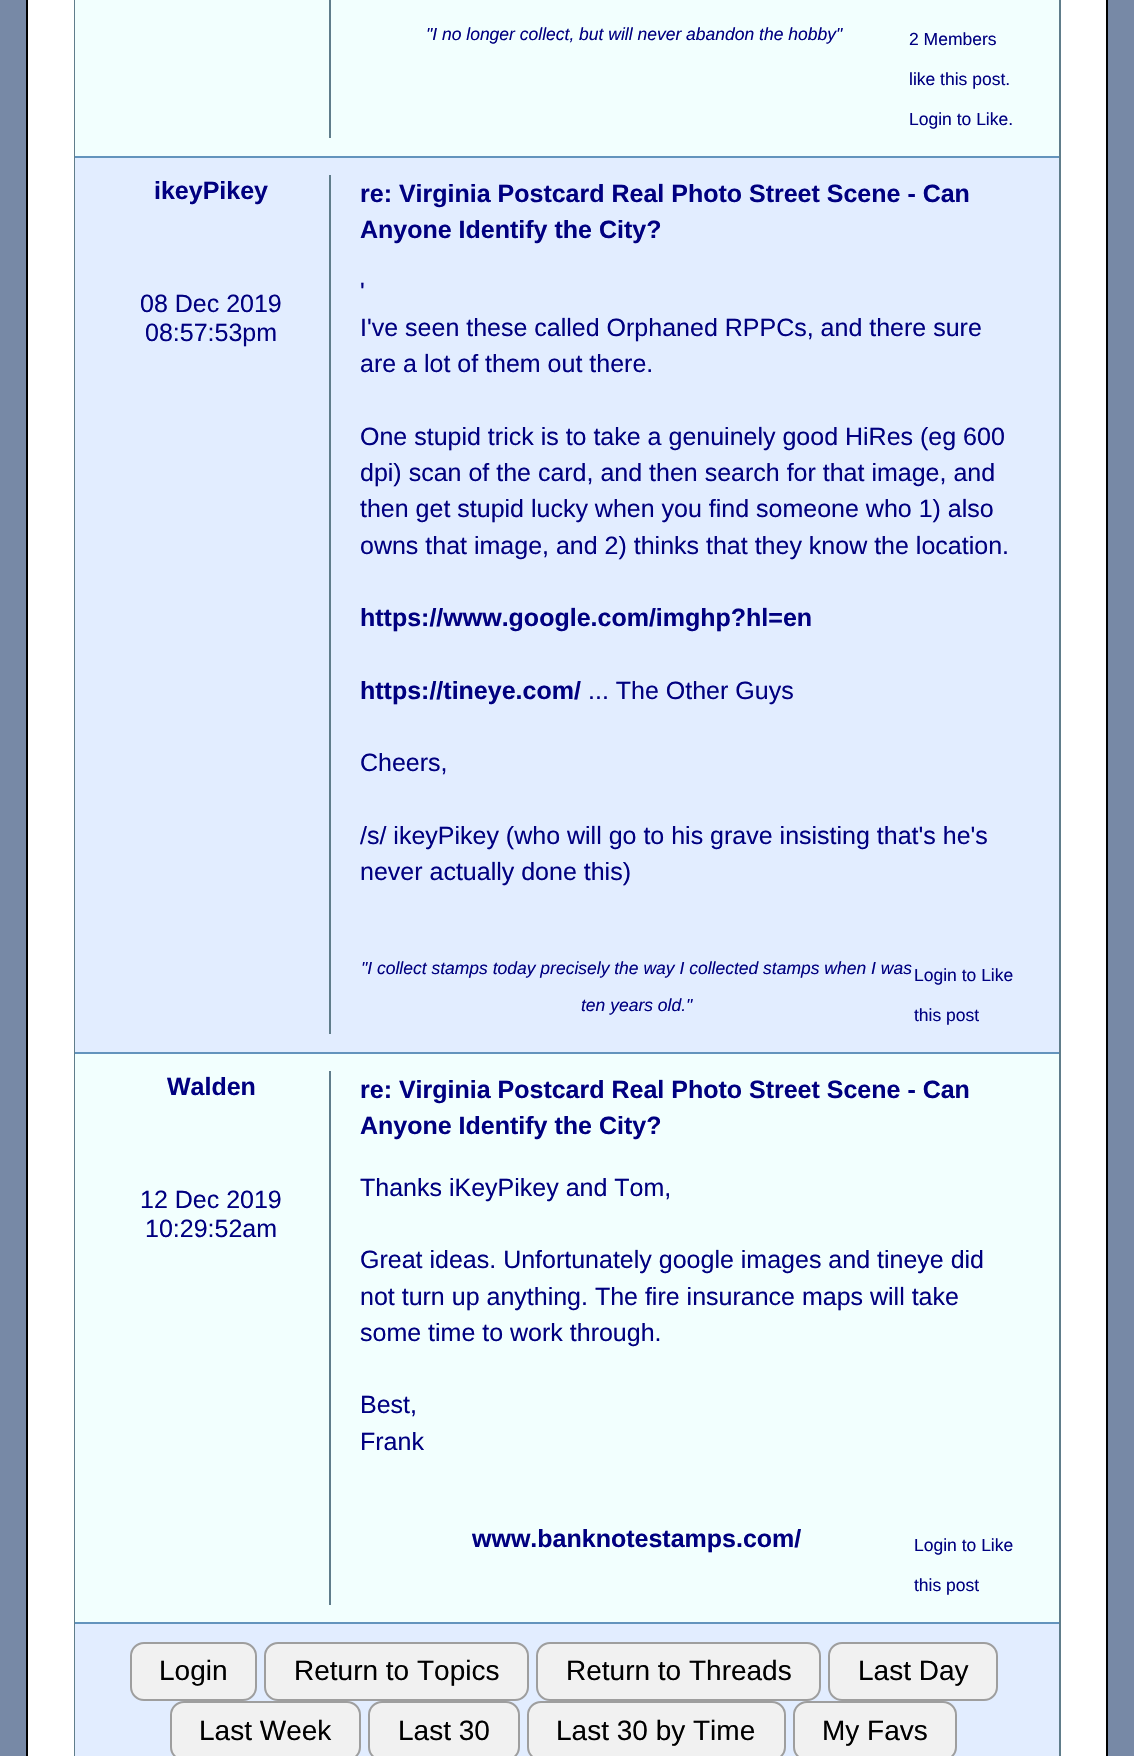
#include "include/core/SkBlurTypes.h"
#include "include/core/SkCanvas.h"
#include "include/core/SkData.h"
#include "include/core/SkFont.h"
#include "include/core/SkFontMgr.h"
#include "include/core/SkImage.h"
#include "include/core/SkMaskFilter.h"
#include "include/core/SkPaint.h"
#include "include/core/SkPathBuilder.h"
#include "include/core/SkTextBlob.h"
#include "include/effects/SkDashPathEffect.h"
#include "include/effects/SkGradientShader.h"
#include "include/utils/SkParsePath.h"

extern sk_sp<SkFontMgr> fontMgr;

void draw(SkCanvas* canvas) {
    SkPaint p;
    p.setAntiAlias(true);
    auto font = [&](const char* family, int weight, float size, bool italic = false) {
        SkFontStyle style(weight, SkFontStyle::kNormal_Width,
            italic ? SkFontStyle::kItalic_Slant : SkFontStyle::kUpright_Slant);
        SkFont result(fontMgr->matchFamilyStyle(family, style), size);
        result.setSubpixel(true);
        return result;
    };
    canvas->clear(0xFF7789A6);
    p.setColor(0xFFFFFFFF);
    canvas->drawRect(SkRect::MakeLTRB(27, -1, 1107, 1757), p);
    p.setStyle(SkPaint::kStroke_Style);
    p.setStrokeWidth(2);
    p.setColor(0xFF000000);
    canvas->drawRect(SkRect::MakeLTRB(27, -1, 1107, 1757), p);
    p.setColor(0xFF607D8B);
    canvas->drawRect(SkRect::MakeLTRB(75, -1, 1060, 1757), p);
    p.setStyle(SkPaint::kFill_Style);
    {
        const struct { float l, t, r, b; SkColor color; } items[] = {
            {75, 0, 1059, 156, 0xFFF2FFFE},
            {75, 156, 1059, 158, 0xFF6394BD},
            {329, 0, 331, 138, 0xFF607D8B},
        };
        for (auto [l, t, r, b, color] : items) {
            p.setColor(color);
            canvas->drawRect(SkRect::MakeLTRB(l, t, r, b), p);
        }
    }
    auto font1 = font("Liberation Sans", 400, 17.5f, true);
    p.setColor(0xFF000080);
    canvas->drawString("\"I no longer collect, but will never abandon the hobby\"", 426, 40, font1, p);
    auto font2 = font("Liberation Sans", 400, 17.5f);
    {
        const struct { const char* s; float x, y; } items[] = {
            {"2 Members", 909, 45},
            {"like this post.", 909, 85},
            {"Login to Like.", 909, 125},
        };
        for (auto [s, x, y] : items) {
            canvas->drawString(s, x, y, font2, p);
        }
    }
    p.setColor(0xFFE2EDFF);
    canvas->drawRect(SkRect::MakeLTRB(75, 158, 1059, 1052), p);
    p.setColor(0xFF6394BD);
    canvas->drawRect(SkRect::MakeLTRB(75, 1052, 1059, 1054), p);
    auto font3 = font("Liberation Sans", 700, 25);
    p.setColor(0xFF000080);
    canvas->drawString("ikeyPikey", 154, 199, font3, p);
    auto font4 = font("Liberation Sans", 400, 25);
    canvas->drawString("08 Dec 2019", 140, 312, font4, p);
    canvas->drawString("08:57:53pm", 145, 341, font4, p);
    p.setColor(0xFF607D8B);
    canvas->drawRect(SkRect::MakeLTRB(329, 175, 331, 1034), p);
    p.setColor(0xFF000080);
    canvas->drawString("re: Virginia Postcard Real Photo Street Scene - Can", 360, 202, font3, p);
    canvas->drawString("Anyone Identify the City?", 360, 238, font3, p);
    {
        const struct { const char* s; float x, y; } items[] = {
            {"'", 360, 300},
            {"I've seen these called Orphaned RPPCs, and there sure", 360, 336},
            {"are a lot of them out there.", 360, 372},
            {"One stupid trick is to take a genuinely good HiRes (eg 600", 360, 445},
            {"dpi) scan of the card, and then search for that image, and", 360, 481},
            {"then get stupid lucky when you find someone who 1) also", 360, 517},
            {"owns that image, and 2) thinks that they know the location.", 360, 554},
        };
        for (auto [s, x, y] : items) {
            canvas->drawString(s, x, y, font4, p);
        }
    }
    canvas->drawString("https://www.google.com/imghp?hl=en", 360, 626, font3, p);
    canvas->drawString("https://tineye.com/", 360, 699, font3, p);
    {
        const struct { const char* s; float x, y; } items[] = {
            {"... The Other Guys", 588, 699},
            {"Cheers,", 360, 771},
            {"/s/ ikeyPikey (who will go to his grave insisting that's he's", 360, 844},
            {"never actually done this)", 360, 880},
        };
        for (auto [s, x, y] : items) {
            canvas->drawString(s, x, y, font4, p);
        }
    }
    canvas->drawString("\"I collect stamps today precisely the way I collected stamps when I was", 361, 974, font1, p);
    canvas->drawString("ten years old.\"", 581, 1011, font1, p);
    canvas->drawString("Login to Like", 914, 981, font2, p);
    canvas->drawString("this post", 914, 1021, font2, p);
    p.setColor(0xFFF2FFFE);
    canvas->drawRect(SkRect::MakeLTRB(75, 1054, 1059, 1622), p);
    p.setColor(0xFF6394BD);
    canvas->drawRect(SkRect::MakeLTRB(75, 1622, 1059, 1624), p);
    p.setColor(0xFF000080);
    canvas->drawString("Walden", 167, 1095, font3, p);
    canvas->drawString("12 Dec 2019", 140, 1208, font4, p);
    canvas->drawString("10:29:52am", 145, 1237, font4, p);
    p.setColor(0xFF607D8B);
    canvas->drawRect(SkRect::MakeLTRB(329, 1071, 331, 1605), p);
    p.setColor(0xFF000080);
    canvas->drawString("re: Virginia Postcard Real Photo Street Scene - Can", 360, 1098, font3, p);
    canvas->drawString("Anyone Identify the City?", 360, 1134, font3, p);
    {
        const struct { const char* s; float x, y; } items[] = {
            {"Thanks iKeyPikey and Tom,", 360, 1196},
            {"Great ideas. Unfortunately google images and tineye did", 360, 1268},
            {"not turn up anything. The fire insurance maps will take", 360, 1305},
            {"some time to work through.", 360, 1341},
            {"Best,", 360, 1413},
            {"Frank", 360, 1450},
        };
        for (auto [s, x, y] : items) {
            canvas->drawString(s, x, y, font4, p);
        }
    }
    canvas->drawString("www.banknotestamps.com/", 472, 1547, font3, p);
    canvas->drawString("Login to Like", 914, 1551, font2, p);
    canvas->drawString("this post", 914, 1591, font2, p);
    p.setColor(0xFFE2EDFF);
    canvas->drawRect(SkRect::MakeLTRB(75, 1624, 1059, 1756), p);
    p.setColor(0xFFF1F1F1);
    canvas->drawRoundRect(SkRect::MakeLTRB(131, 1643, 256, 1700), 13, 13, p);
    p.setStyle(SkPaint::kStroke_Style);
    p.setColor(0xFF9E9E9E);
    canvas->drawRoundRect(SkRect::MakeLTRB(131, 1643, 256, 1700), 13, 13, p);
    auto font5 = font("Liberation Sans", 400, 28);
    p.setStyle(SkPaint::kFill_Style);
    p.setColor(0xFF000000);
    canvas->drawString("Login", 159, 1680, font5, p);
    p.setColor(0xFFF1F1F1);
    canvas->drawRoundRect(SkRect::MakeLTRB(265, 1643, 528, 1700), 13, 13, p);
    p.setStyle(SkPaint::kStroke_Style);
    p.setColor(0xFF9E9E9E);
    canvas->drawRoundRect(SkRect::MakeLTRB(265, 1643, 528, 1700), 13, 13, p);
    p.setStyle(SkPaint::kFill_Style);
    p.setColor(0xFF000000);
    canvas->drawString("Return to Topics", 294, 1680, font5, p);
    p.setColor(0xFFF1F1F1);
    canvas->drawRoundRect(SkRect::MakeLTRB(537, 1643, 820, 1700), 13, 13, p);
    p.setStyle(SkPaint::kStroke_Style);
    p.setColor(0xFF9E9E9E);
    canvas->drawRoundRect(SkRect::MakeLTRB(537, 1643, 820, 1700), 13, 13, p);
    p.setStyle(SkPaint::kFill_Style);
    p.setColor(0xFF000000);
    canvas->drawString("Return to Threads", 566, 1680, font5, p);
    p.setColor(0xFFF1F1F1);
    canvas->drawRoundRect(SkRect::MakeLTRB(829, 1643, 997, 1700), 13, 13, p);
    p.setStyle(SkPaint::kStroke_Style);
    p.setColor(0xFF9E9E9E);
    canvas->drawRoundRect(SkRect::MakeLTRB(829, 1643, 997, 1700), 13, 13, p);
    p.setStyle(SkPaint::kFill_Style);
    p.setColor(0xFF000000);
    canvas->drawString("Last Day", 858, 1680, font5, p);
    p.setColor(0xFFF1F1F1);
    canvas->drawRoundRect(SkRect::MakeLTRB(171, 1702, 360, 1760), 13, 13, p);
    p.setStyle(SkPaint::kStroke_Style);
    p.setColor(0xFF9E9E9E);
    canvas->drawRoundRect(SkRect::MakeLTRB(171, 1702, 360, 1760), 13, 13, p);
    p.setStyle(SkPaint::kFill_Style);
    p.setColor(0xFF000000);
    canvas->drawString("Last Week", 199, 1740, font5, p);
    p.setColor(0xFFF1F1F1);
    canvas->drawRoundRect(SkRect::MakeLTRB(369, 1702, 519, 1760), 13, 13, p);
    p.setStyle(SkPaint::kStroke_Style);
    p.setColor(0xFF9E9E9E);
    canvas->drawRoundRect(SkRect::MakeLTRB(369, 1702, 519, 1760), 13, 13, p);
    p.setStyle(SkPaint::kFill_Style);
    p.setColor(0xFF000000);
    canvas->drawString("Last 30", 398, 1740, font5, p);
    p.setColor(0xFFF1F1F1);
    canvas->drawRoundRect(SkRect::MakeLTRB(528, 1702, 785, 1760), 13, 13, p);
    p.setStyle(SkPaint::kStroke_Style);
    p.setColor(0xFF9E9E9E);
    canvas->drawRoundRect(SkRect::MakeLTRB(528, 1702, 785, 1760), 13, 13, p);
    p.setStyle(SkPaint::kFill_Style);
    p.setColor(0xFF000000);
    canvas->drawString("Last 30 by Time", 556, 1740, font5, p);
    p.setColor(0xFFF1F1F1);
    canvas->drawRoundRect(SkRect::MakeLTRB(794, 1702, 956, 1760), 13, 13, p);
    p.setStyle(SkPaint::kStroke_Style);
    p.setColor(0xFF9E9E9E);
    canvas->drawRoundRect(SkRect::MakeLTRB(794, 1702, 956, 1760), 13, 13, p);
    p.setStyle(SkPaint::kFill_Style);
    p.setColor(0xFF000000);
    canvas->drawString("My Favs", 822, 1740, font5, p);
}
